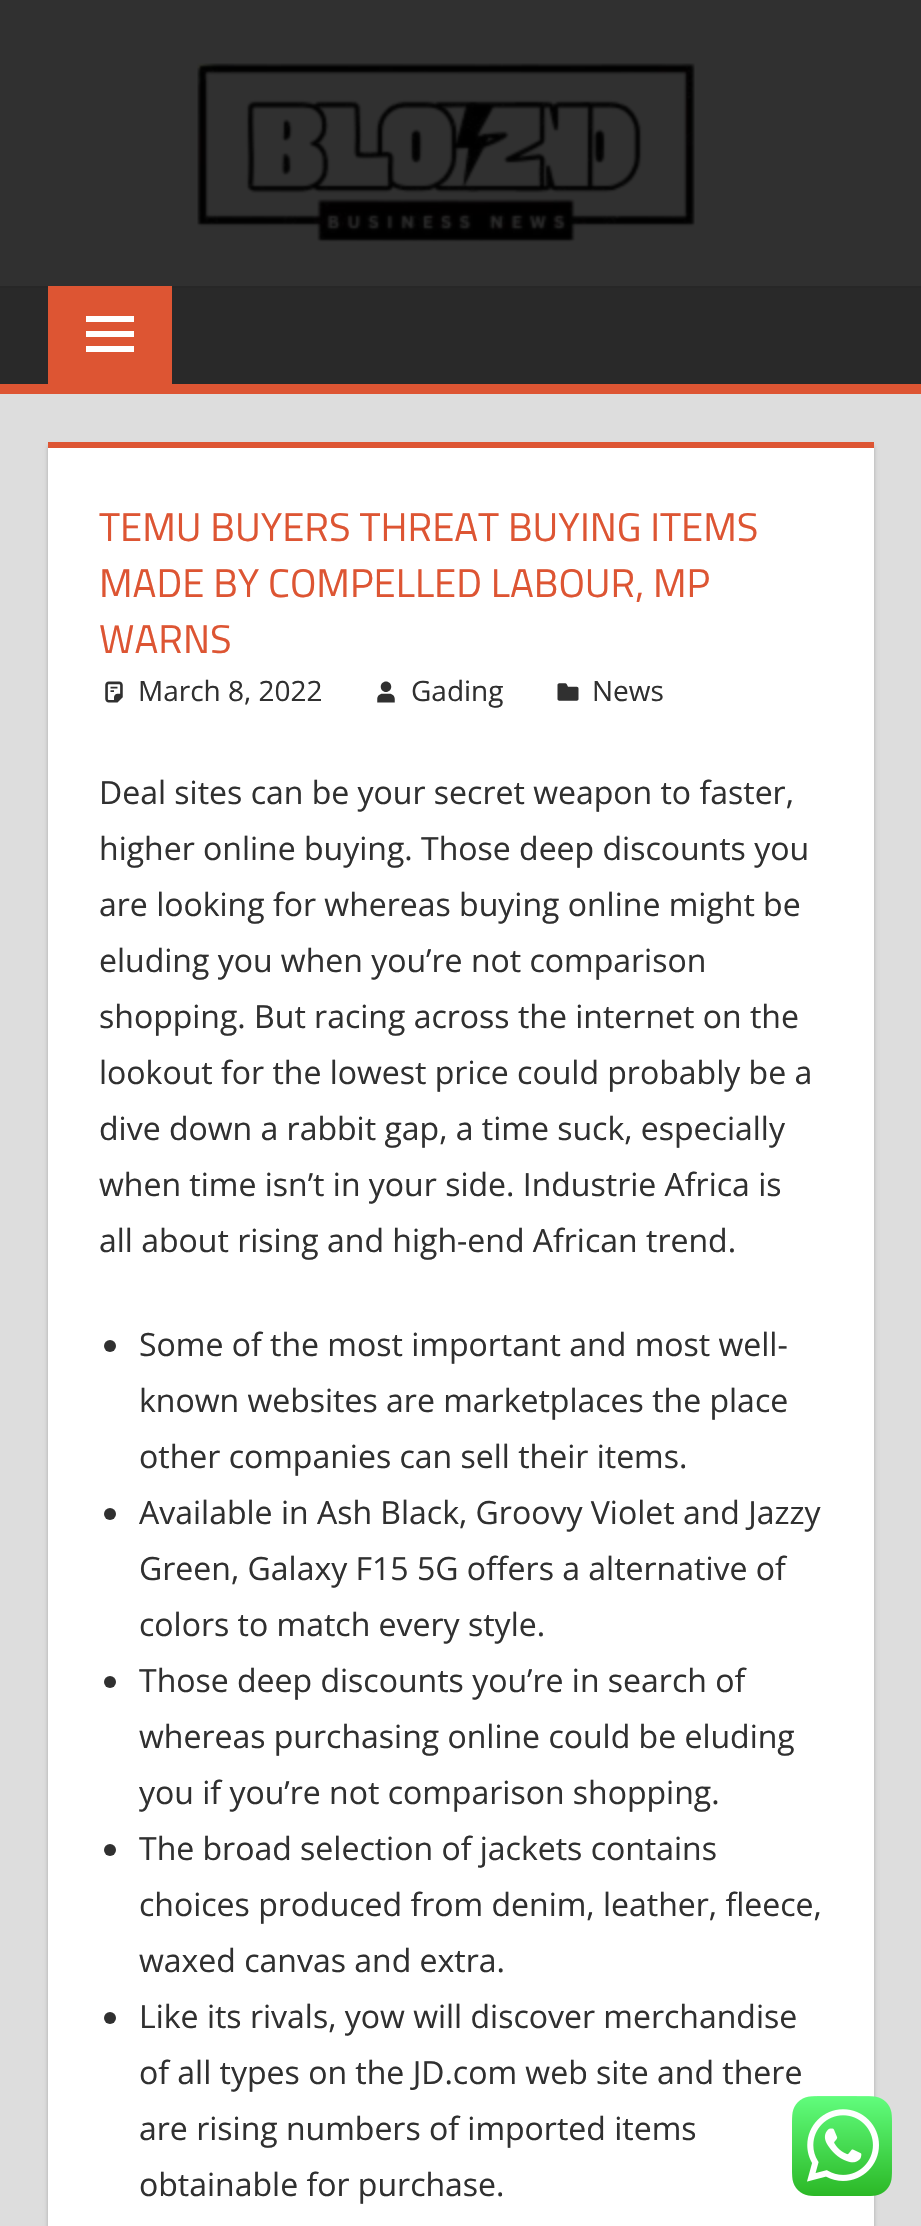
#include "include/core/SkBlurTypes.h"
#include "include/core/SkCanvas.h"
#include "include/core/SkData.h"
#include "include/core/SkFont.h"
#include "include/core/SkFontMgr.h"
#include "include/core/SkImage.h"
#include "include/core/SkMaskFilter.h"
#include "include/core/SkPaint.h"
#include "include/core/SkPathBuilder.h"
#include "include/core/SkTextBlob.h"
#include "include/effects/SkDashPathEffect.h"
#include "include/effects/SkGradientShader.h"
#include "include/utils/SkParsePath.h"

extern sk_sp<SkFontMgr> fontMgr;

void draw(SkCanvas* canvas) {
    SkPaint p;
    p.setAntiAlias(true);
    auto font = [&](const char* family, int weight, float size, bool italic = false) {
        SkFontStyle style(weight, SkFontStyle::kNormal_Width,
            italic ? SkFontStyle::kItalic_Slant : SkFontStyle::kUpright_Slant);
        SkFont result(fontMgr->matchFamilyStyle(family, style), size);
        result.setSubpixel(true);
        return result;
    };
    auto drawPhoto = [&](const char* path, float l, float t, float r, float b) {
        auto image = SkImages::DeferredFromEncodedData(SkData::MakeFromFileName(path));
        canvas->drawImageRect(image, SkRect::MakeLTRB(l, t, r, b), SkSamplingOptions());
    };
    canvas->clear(0xFFDDDDDD);
    p.setColor(0xFF303030);
    canvas->drawRect(SkRect::MakeLTRB(0, 0, 921, 286), p);
    drawPhoto("media/1.png", 197, 63, 695, 242);
    {
        const struct { float l, t, r, b; SkColor color; } items[] = {
            {0, 288, 921, 384, 0xFF292929},
            {0, 286, 921, 288, 0xFF272727},
            {0, 384, 921, 394, 0xFFDD5533},
            {48, 286, 172, 384, 0xFFDD5533},
        };
        for (auto [l, t, r, b, color] : items) {
            p.setColor(color);
            canvas->drawRect(SkRect::MakeLTRB(l, t, r, b), p);
        }
    }
    drawPhoto("media/2.png", 86, 316, 134, 352);
    p.setColor(0xFFAAAAAA);
    p.setMaskFilter(SkMaskFilter::MakeBlur(kNormal_SkBlurStyle, 2));
    canvas->drawRect(SkRect::MakeLTRB(48, 446, 874, 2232), p);
    p.setMaskFilter(nullptr);
    p.setColor(0xFFFFFFFF);
    canvas->drawRect(SkRect::MakeLTRB(48, 448, 874, 2226), p);
    p.setColor(0xFFDD5533);
    canvas->drawRect(SkRect::MakeLTRB(48, 442, 874, 448), p);
    auto font1 = font("Titillium Web", 400, 40);
    {
        const struct { const char* s; float x, y; } items[] = {
            {"TEMU BUYERS THREAT BUYING ITEMS", 99, 541},
            {"MADE BY COMPELLED LABOUR, MP", 99, 597},
            {"WARNS", 99, 653},
        };
        for (auto [s, x, y] : items) {
            canvas->drawString(s, x, y, font1, p);
        }
    }
    drawPhoto("media/3.png", 105, 681, 123, 703);
    auto font2 = font("Open Sans", 400, 28);
    p.setColor(0xFF303030);
    canvas->drawString("March 8, 2022", 138, 701, font2, p);
    drawPhoto("media/4.png", 377, 681, 395, 703);
    canvas->drawString("Gading", 411, 701, font2, p);
    drawPhoto("media/5.png", 557, 683, 579, 701);
    canvas->drawString("News", 592, 701, font2, p);
    auto font3 = font("Open Sans", 400, 32);
    {
        const struct { const char* s; float x, y; } items[] = {
            {"Deal sites can be your secret weapon to faster,", 99, 804},
            {"higher online buying. Those deep discounts you", 99, 860},
            {"are looking for whereas buying online might be", 99, 916},
            {"eluding you when you’re not comparison", 99, 972},
            {"shopping. But racing across the internet on the", 99, 1028},
            {"lookout for the lowest price could probably be a", 99, 1084},
            {"dive down a rabbit gap, a time suck, especially", 99, 1140},
            {"when time isn’t in your side. Industrie Africa is", 99, 1196},
            {"all about rising and high-end African trend.", 99, 1252},
        };
        for (auto [s, x, y] : items) {
            canvas->drawString(s, x, y, font3, p);
        }
    }
    canvas->drawCircle(110, 1346, 6, p);
    {
        const struct { const char* s; float x, y; } items[] = {
            {"Some of the most important and most well-", 139, 1356},
            {"known websites are marketplaces the place", 139, 1412},
            {"other companies can sell their items.", 139, 1468},
        };
        for (auto [s, x, y] : items) {
            canvas->drawString(s, x, y, font3, p);
        }
    }
    canvas->drawCircle(110, 1514, 6, p);
    {
        const struct { const char* s; float x, y; } items[] = {
            {"Available in Ash Black, Groovy Violet and Jazzy", 139, 1524},
            {"Green, Galaxy F15 5G offers a alternative of", 139, 1580},
            {"colors to match every style.", 139, 1636},
        };
        for (auto [s, x, y] : items) {
            canvas->drawString(s, x, y, font3, p);
        }
    }
    canvas->drawCircle(110, 1682, 6, p);
    {
        const struct { const char* s; float x, y; } items[] = {
            {"Those deep discounts you’re in search of", 139, 1692},
            {"whereas purchasing online could be eluding", 139, 1748},
            {"you if you’re not comparison shopping.", 139, 1804},
        };
        for (auto [s, x, y] : items) {
            canvas->drawString(s, x, y, font3, p);
        }
    }
    canvas->drawCircle(110, 1850, 6, p);
    {
        const struct { const char* s; float x, y; } items[] = {
            {"The broad selection of jackets contains", 139, 1860},
            {"choices produced from denim, leather, fleece,", 139, 1916},
            {"waxed canvas and extra.", 139, 1972},
        };
        for (auto [s, x, y] : items) {
            canvas->drawString(s, x, y, font3, p);
        }
    }
    canvas->drawCircle(110, 2018, 6, p);
    {
        const struct { const char* s; float x, y; } items[] = {
            {"Like its rivals, yow will discover merchandise", 139, 2028},
            {"of all types on the JD.com web site and there", 139, 2084},
            {"are rising numbers of imported items", 139, 2140},
            {"obtainable for purchase.", 139, 2196},
        };
        for (auto [s, x, y] : items) {
            canvas->drawString(s, x, y, font3, p);
        }
    }
    drawPhoto("media/6.png", 792, 2096, 892, 2196);
}
